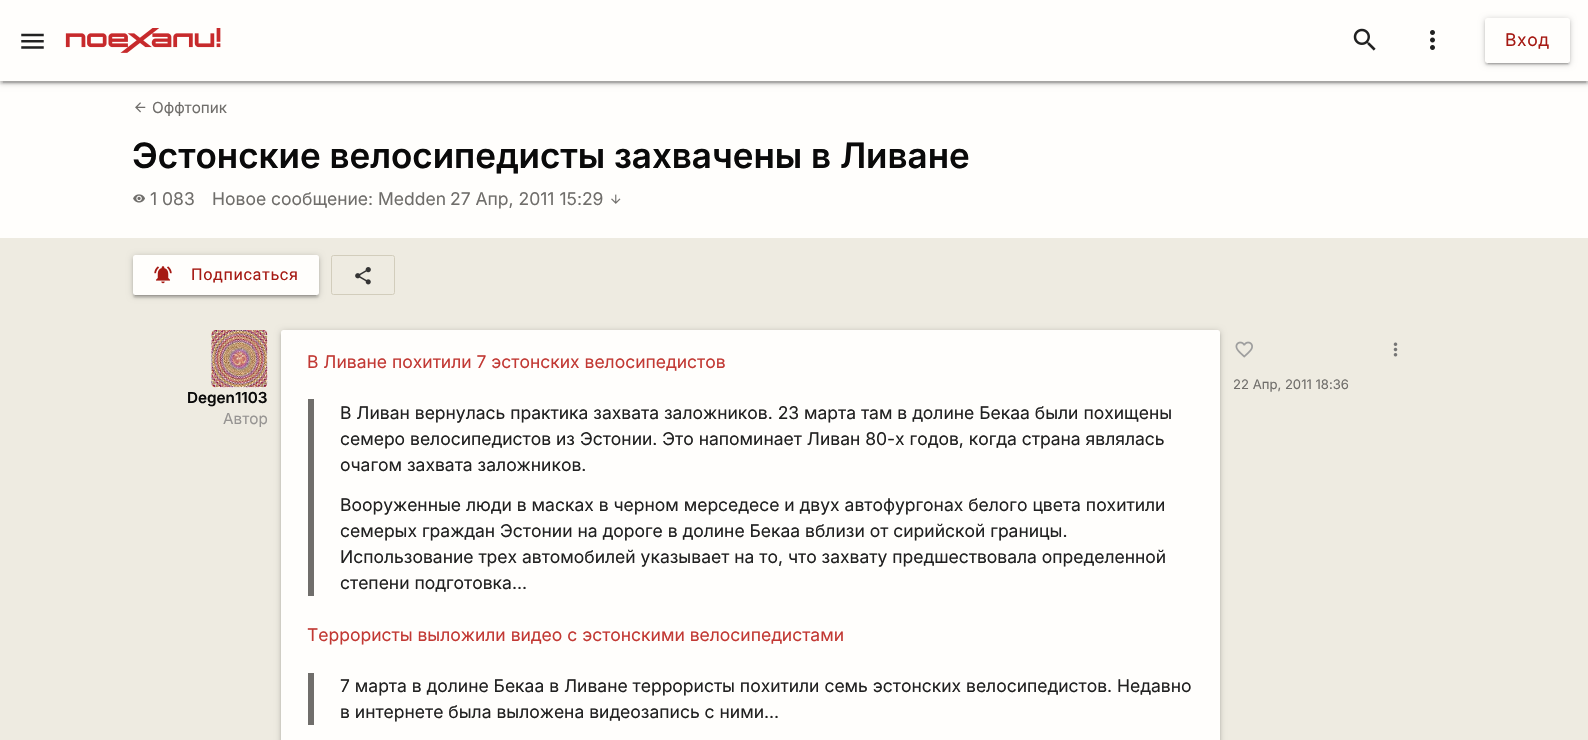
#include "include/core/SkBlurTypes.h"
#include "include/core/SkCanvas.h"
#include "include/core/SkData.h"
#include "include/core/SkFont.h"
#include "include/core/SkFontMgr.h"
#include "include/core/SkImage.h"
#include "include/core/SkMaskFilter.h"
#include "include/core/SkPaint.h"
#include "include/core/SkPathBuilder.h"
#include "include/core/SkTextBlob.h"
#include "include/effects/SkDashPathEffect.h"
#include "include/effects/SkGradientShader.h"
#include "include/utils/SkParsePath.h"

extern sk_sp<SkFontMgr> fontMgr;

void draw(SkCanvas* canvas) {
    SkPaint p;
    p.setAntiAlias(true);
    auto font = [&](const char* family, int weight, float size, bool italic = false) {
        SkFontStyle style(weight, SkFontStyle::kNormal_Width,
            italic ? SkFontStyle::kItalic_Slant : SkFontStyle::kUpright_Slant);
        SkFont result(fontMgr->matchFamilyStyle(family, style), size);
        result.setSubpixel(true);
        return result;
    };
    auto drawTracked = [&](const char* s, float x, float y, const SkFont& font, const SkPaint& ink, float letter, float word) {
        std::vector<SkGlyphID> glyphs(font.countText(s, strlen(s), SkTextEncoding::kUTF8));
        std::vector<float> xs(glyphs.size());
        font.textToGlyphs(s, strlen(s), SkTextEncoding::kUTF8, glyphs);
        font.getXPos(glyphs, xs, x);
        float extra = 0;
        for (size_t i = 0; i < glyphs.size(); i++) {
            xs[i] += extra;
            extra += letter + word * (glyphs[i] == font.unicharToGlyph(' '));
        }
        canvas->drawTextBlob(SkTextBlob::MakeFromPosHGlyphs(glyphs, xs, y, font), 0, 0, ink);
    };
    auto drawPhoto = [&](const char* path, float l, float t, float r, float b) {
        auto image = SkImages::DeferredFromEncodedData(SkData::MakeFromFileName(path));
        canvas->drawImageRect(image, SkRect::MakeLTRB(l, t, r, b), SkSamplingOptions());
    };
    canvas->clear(0xFFEEEBE1);
    p.setColor(0xFFFFFEFC);
    canvas->drawRect(SkRect::MakeLTRB(0, 81, 1588, 238), p);
    p.setColor(0x33000000);
    p.setMaskFilter(SkMaskFilter::MakeBlur(kNormal_SkBlurStyle, 3));
    canvas->drawRect(SkRect::MakeLTRB(0, 1, 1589, 83), p);
    p.setMaskFilter(nullptr);
    p.setColor(0x1F000000);
    p.setMaskFilter(SkMaskFilter::MakeBlur(kNormal_SkBlurStyle, 0.5f));
    canvas->drawRect(SkRect::MakeLTRB(3, 6, 1586, 83), p);
    p.setMaskFilter(nullptr);
    p.setColor(0x24000000);
    p.setMaskFilter(SkMaskFilter::MakeBlur(kNormal_SkBlurStyle, 1));
    canvas->drawRect(SkRect::MakeLTRB(0, 3, 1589, 84), p);
    p.setMaskFilter(nullptr);
    p.setColor(0xFFFFFEFC);
    canvas->drawRect(SkRect::MakeLTRB(0, 0, 1588, 81), p);
    drawPhoto("media/1.png", 21, 33, 44, 49);
    drawPhoto("media/2.png", 65, 28, 221, 53);
    drawPhoto("media/3.png", 1353, 28, 1376, 51);
    drawPhoto("media/4.png", 1430, 30, 1435, 50);
    p.setColor(0x33000000);
    p.setMaskFilter(SkMaskFilter::MakeBlur(kNormal_SkBlurStyle, 3));
    canvas->drawRoundRect(SkRect::MakeLTRB(1485, 19, 1570, 64), 2.5f, 2.5f, p);
    p.setMaskFilter(nullptr);
    p.setColor(0x1F000000);
    p.setMaskFilter(SkMaskFilter::MakeBlur(kNormal_SkBlurStyle, 0.5f));
    canvas->drawRect(SkRect::MakeLTRB(1488, 24, 1568, 64), p);
    p.setMaskFilter(nullptr);
    p.setColor(0x24000000);
    p.setMaskFilter(SkMaskFilter::MakeBlur(kNormal_SkBlurStyle, 1));
    canvas->drawRoundRect(SkRect::MakeLTRB(1485, 20, 1570, 65), 2.5f, 2.5f, p);
    p.setMaskFilter(nullptr);
    p.setColor(0xFFFFFEFC);
    canvas->drawRoundRect(SkRect::MakeLTRB(1485, 18, 1570, 63), 2.5f, 2.5f, p);
    auto font1 = font("Inter", 400, 17.5f);
    p.setColor(0xFFA61A14);
    drawTracked("Вход", 1505, 46, font1, p, 0.6f, 0);
    drawPhoto("media/5.png", 135, 102, 146, 113);
    auto font2 = font("Inter", 400, 15.25f);
    p.setColor(0xFF706E6B);
    canvas->drawString("Оффтопик", 152, 113, font2, p);
    auto font3 = font("Inter", 600, 35);
    p.setColor(0xFF0A0A0A);
    canvas->drawString("Эстонские велосипедисты захвачены в Ливане", 132, 168, font3, p);
    drawPhoto("media/6.png", 133, 194, 145, 203);
    p.setColor(0xFF706E6B);
    {
        const struct { const char* s; float x, y; } items[] = {
            {"1 083", 150, 205},
            {"Новое сообщение:", 212, 205},
            {"Medden", 378, 205},
            {"27 Апр, 2011 15:29", 450, 205},
        };
        for (auto [s, x, y] : items) {
            canvas->drawString(s, x, y, font1, p);
        }
    }
    drawPhoto("media/7.png", 611, 194, 621, 204);
    p.setColor(0x33000000);
    p.setMaskFilter(SkMaskFilter::MakeBlur(kNormal_SkBlurStyle, 3));
    canvas->drawRoundRect(SkRect::MakeLTRB(133, 256, 319, 296), 2.5f, 2.5f, p);
    p.setMaskFilter(nullptr);
    p.setColor(0x1F000000);
    p.setMaskFilter(SkMaskFilter::MakeBlur(kNormal_SkBlurStyle, 0.5f));
    canvas->drawRect(SkRect::MakeLTRB(135, 261, 316, 296), p);
    p.setMaskFilter(nullptr);
    p.setColor(0x24000000);
    p.setMaskFilter(SkMaskFilter::MakeBlur(kNormal_SkBlurStyle, 1));
    canvas->drawRoundRect(SkRect::MakeLTRB(133, 258, 319, 298), 2.5f, 2.5f, p);
    p.setMaskFilter(nullptr);
    p.setColor(0xFFFFFEFC);
    canvas->drawRoundRect(SkRect::MakeLTRB(133, 255, 319, 295), 2.5f, 2.5f, p);
    drawPhoto("media/8.png", 154, 266, 172, 284);
    auto font4 = font("Roboto", 400, 16.25f);
    p.setColor(0xFFA61A14);
    drawTracked("Подписаться", 191, 280, font4, p, 0.6f, 0);
    p.setStyle(SkPaint::kStroke_Style);
    p.setStrokeWidth(1);
    p.setColor(0xFFD2CDBC);
    canvas->drawRoundRect(SkRect::MakeLTRB(331.5f, 255.5f, 394.5f, 294.5f), 2, 2, p);
    drawPhoto("media/9.png", 355, 267, 371, 285);
    p.setStyle(SkPaint::kFill_Style);
    p.setColor(0x33000000);
    p.setMaskFilter(SkMaskFilter::MakeBlur(kNormal_SkBlurStyle, 3));
    canvas->drawRoundRect(SkRect::MakeLTRB(281, 331, 1220, 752), 2.5f, 2.5f, p);
    p.setMaskFilter(nullptr);
    p.setColor(0x24000000);
    p.setMaskFilter(SkMaskFilter::MakeBlur(kNormal_SkBlurStyle, 1));
    canvas->drawRoundRect(SkRect::MakeLTRB(281, 333, 1220, 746), 2.5f, 2.5f, p);
    p.setMaskFilter(nullptr);
    p.setColor(0xFFFFFEFC);
    canvas->drawRoundRect(SkRect::MakeLTRB(281, 330, 1220, 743), 2.5f, 2.5f, p);
    p.setColor(0xFFC23934);
    canvas->drawString("В Ливане похитили 7 эстонских велосипедистов", 307, 368, font1, p);
    p.setColor(0xFF706E6B);
    canvas->drawRect(SkRect::MakeLTRB(308, 399, 314, 596), p);
    p.setColor(0xFF212121);
    {
        const struct { const char* s; float x, y; } items[] = {
            {"В Ливан вернулась практика захвата заложников. 23 марта там в долине Бекаа были похищены", 340, 419},
            {"семеро велосипедистов из Эстонии. Это напоминает Ливан 80-х годов, когда страна являлась", 340, 445},
            {"очагом захвата заложников.", 340, 471},
            {"Вооруженные люди в масках в черном мерседесе и двух автофургонах белого цвета похитили", 340, 511},
            {"семерых граждан Эстонии на дороге в долине Бекаа вблизи от сирийской границы.", 340, 537},
            {"Использование трех автомобилей указывает на то, что захвату предшествовала определенной", 340, 563},
            {"степени подготовка...", 340, 589},
        };
        for (auto [s, x, y] : items) {
            canvas->drawString(s, x, y, font1, p);
        }
    }
    p.setColor(0xFFC23934);
    canvas->drawString("Террористы выложили видео с эстонскими велосипедистами", 307, 641, font1, p);
    p.setColor(0xFF706E6B);
    canvas->drawRect(SkRect::MakeLTRB(308, 673, 314, 725), p);
    p.setColor(0xFF212121);
    canvas->drawString("7 марта в долине Бекаа в Ливане террористы похитили семь эстонских велосипедистов. Недавно", 340, 692, font1, p);
    canvas->drawString("в интернете была выложена видеозапись с ними...", 340, 718, font1, p);
    drawPhoto("media/10.png", 1393, 342, 1398, 357);
    drawPhoto("media/11.png", 1235, 341, 1253, 358);
    auto font5 = font("Inter", 400, 13.1f);
    p.setColor(0xFF706E6B);
    canvas->drawString("22 Апр, 2011 18:36", 1233, 389, font5, p);
    p.setColor(0xFFFFFEFC);
    canvas->drawRoundRect(SkRect::MakeLTRB(211, 330, 268, 388), 5, 5, p);
    drawPhoto("media/12.png", 211, 330, 268, 388);
    auto font6 = font("Inter", 600, 15.25f);
    p.setColor(0xFF0A0A0A);
    canvas->drawString("Degen1103", 187, 403, font6, p);
    p.setColor(0xFF969492);
    canvas->drawString("Автор", 223, 424, font2, p);
}
